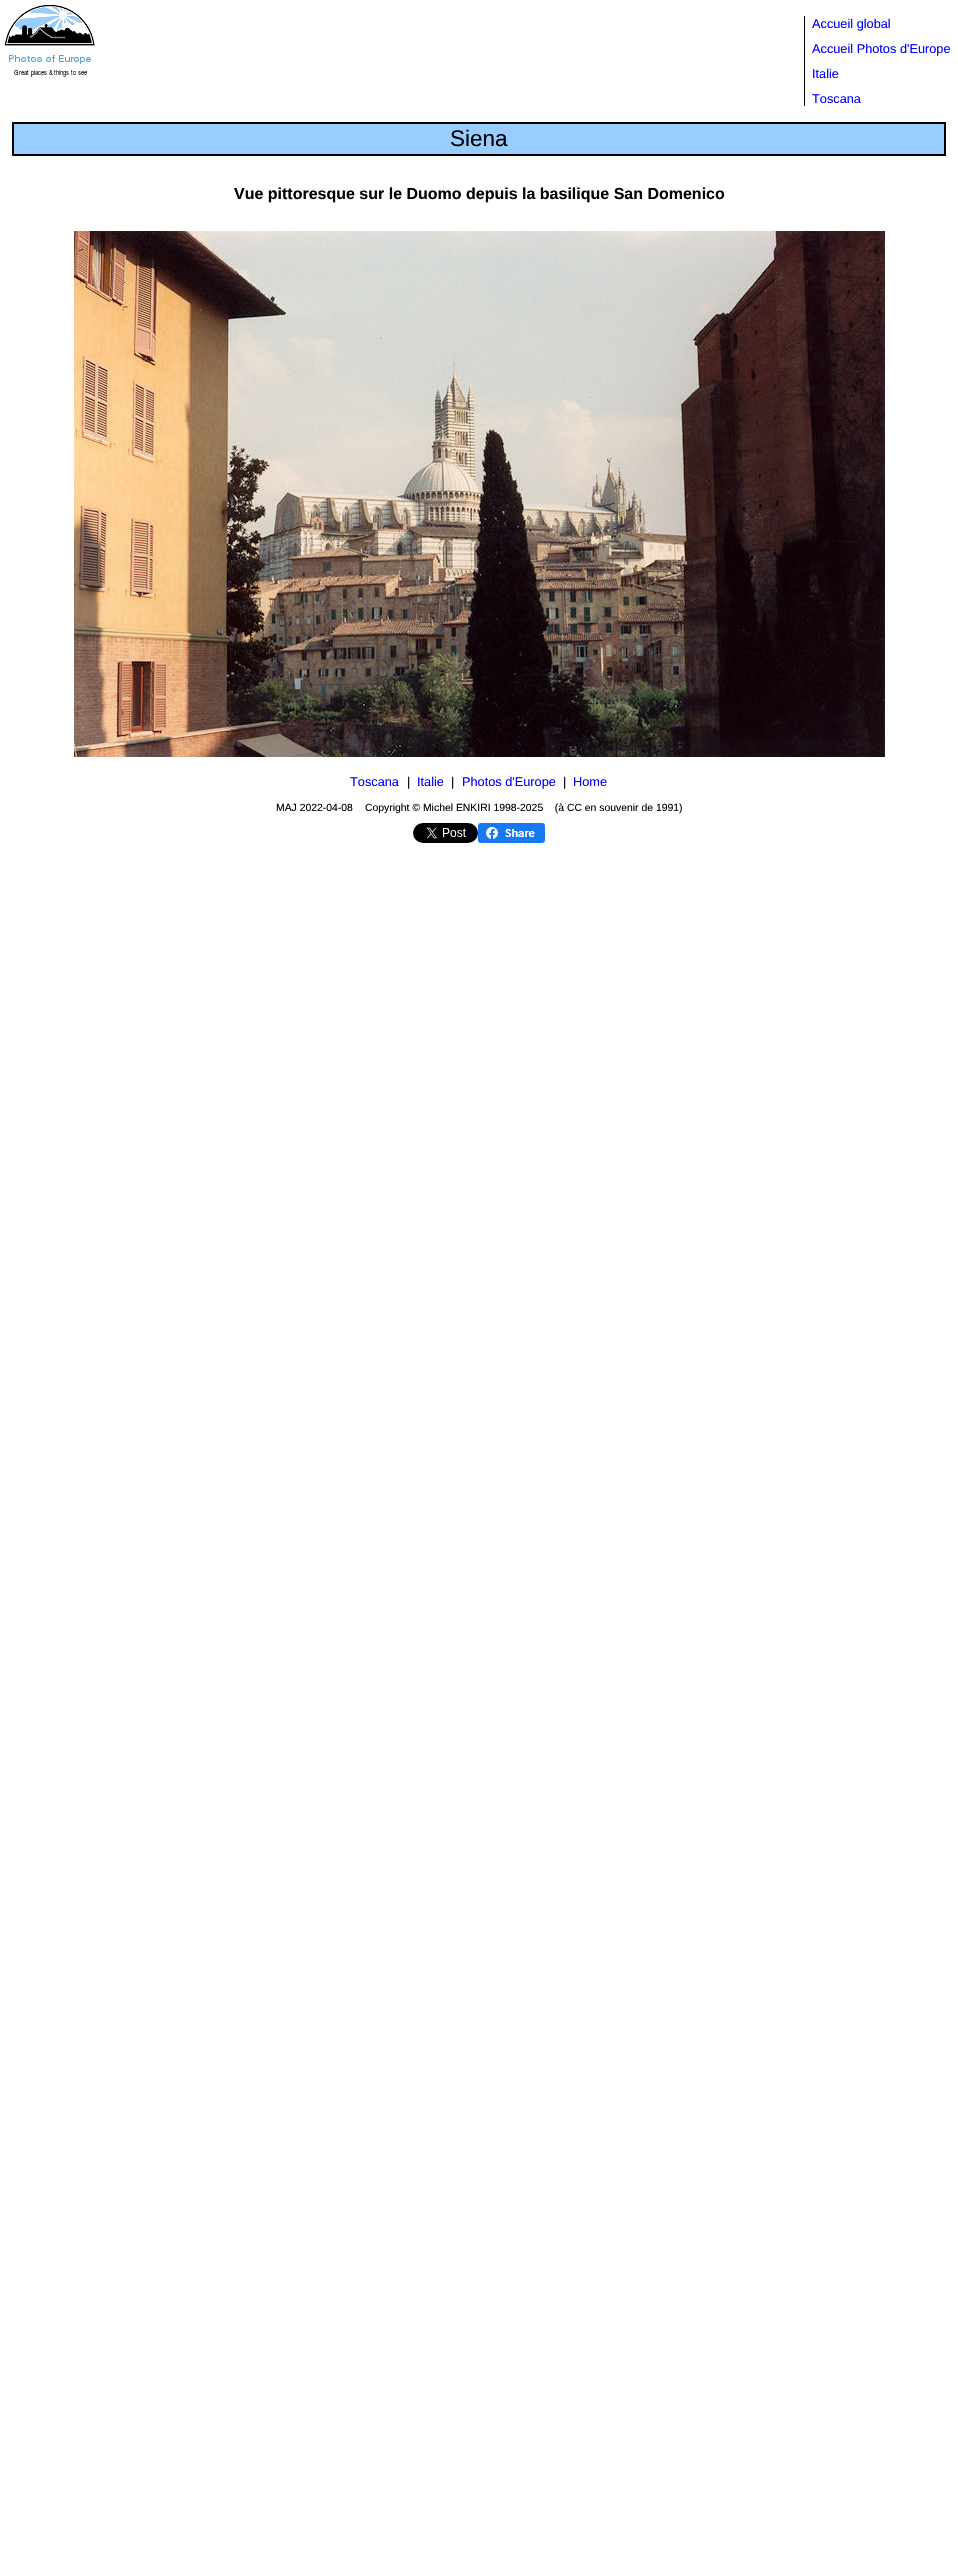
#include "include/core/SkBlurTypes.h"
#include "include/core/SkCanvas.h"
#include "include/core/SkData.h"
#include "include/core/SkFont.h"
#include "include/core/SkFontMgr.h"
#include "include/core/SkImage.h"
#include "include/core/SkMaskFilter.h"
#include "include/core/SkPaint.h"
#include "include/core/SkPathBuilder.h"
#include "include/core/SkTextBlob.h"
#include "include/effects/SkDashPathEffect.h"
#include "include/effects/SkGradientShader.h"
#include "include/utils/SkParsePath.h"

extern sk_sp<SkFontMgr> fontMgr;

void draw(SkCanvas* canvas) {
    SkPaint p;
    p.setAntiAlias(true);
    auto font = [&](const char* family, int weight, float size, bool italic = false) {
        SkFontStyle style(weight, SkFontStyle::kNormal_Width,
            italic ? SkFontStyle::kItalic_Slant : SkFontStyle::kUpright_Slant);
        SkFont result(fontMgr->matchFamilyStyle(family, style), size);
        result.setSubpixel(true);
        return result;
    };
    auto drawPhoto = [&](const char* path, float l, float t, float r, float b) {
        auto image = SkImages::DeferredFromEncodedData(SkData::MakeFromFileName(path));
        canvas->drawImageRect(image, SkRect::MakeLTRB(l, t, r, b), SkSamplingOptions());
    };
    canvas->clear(0xFFFFFFFF);
    drawPhoto("media/1.png", 4, 5, 95, 77);
    p.setColor(0xFF000000);
    canvas->drawRect(SkRect::MakeLTRB(804, 16, 805, 106), p);
    auto font1 = font("Liberation Sans", 400, 12.75f);
    p.setColor(0xFF0000FF);
    {
        const struct { const char* s; float x, y; } items[] = {
            {"Accueil global", 812, 28},
            {"Accueil Photos d'Europe", 812, 53},
            {"Italie", 812, 78},
            {"Toscana", 812, 103},
        };
        for (auto [s, x, y] : items) {
            canvas->drawString(s, x, y, font1, p);
        }
    }
    p.setColor(0xFF99CCFF);
    canvas->drawRect(SkRect::MakeLTRB(13, 123, 945, 155), p);
    p.setStyle(SkPaint::kStroke_Style);
    p.setStrokeWidth(2);
    p.setColor(0xFF000000);
    canvas->drawRect(SkRect::MakeLTRB(13, 123, 945, 155), p);
    auto font2 = font("Liberation Sans", 400, 22.5f);
    p.setStyle(SkPaint::kFill_Style);
    canvas->drawString("Siena", 450, 146, font2, p);
    auto font3 = font("Liberation Sans", 700, 16);
    canvas->drawString("Vue pittoresque sur le Duomo depuis la basilique San Domenico", 234, 199, font3, p);
    drawPhoto("media/2.png", 74, 231, 885, 757);
    p.setColor(0xFF0000FF);
    canvas->drawString("Toscana", 350, 786, font1, p);
    p.setColor(0xFF000000);
    canvas->drawString("|", 407, 786, font1, p);
    p.setColor(0xFF0000FF);
    canvas->drawString("Italie", 417, 786, font1, p);
    p.setColor(0xFF000000);
    canvas->drawString("|", 451, 786, font1, p);
    p.setColor(0xFF0000FF);
    canvas->drawString("Photos d'Europe", 462, 786, font1, p);
    p.setColor(0xFF000000);
    canvas->drawString("|", 563, 786, font1, p);
    p.setColor(0xFF0000FF);
    canvas->drawString("Home", 573, 786, font1, p);
    auto font4 = font("Liberation Sans", 400, 10.4f);
    p.setColor(0xFF000000);
    canvas->drawString("MAJ 2022-04-08", 276, 811, font4, p);
    canvas->drawString("Copyright © Michel ENKIRI 1998-2025    (à CC en souvenir de 1991)", 365, 811, font4, p);
    drawPhoto("media/3.png", 413, 823, 478, 843);
    drawPhoto("media/4.png", 478, 823, 545, 843);
}
